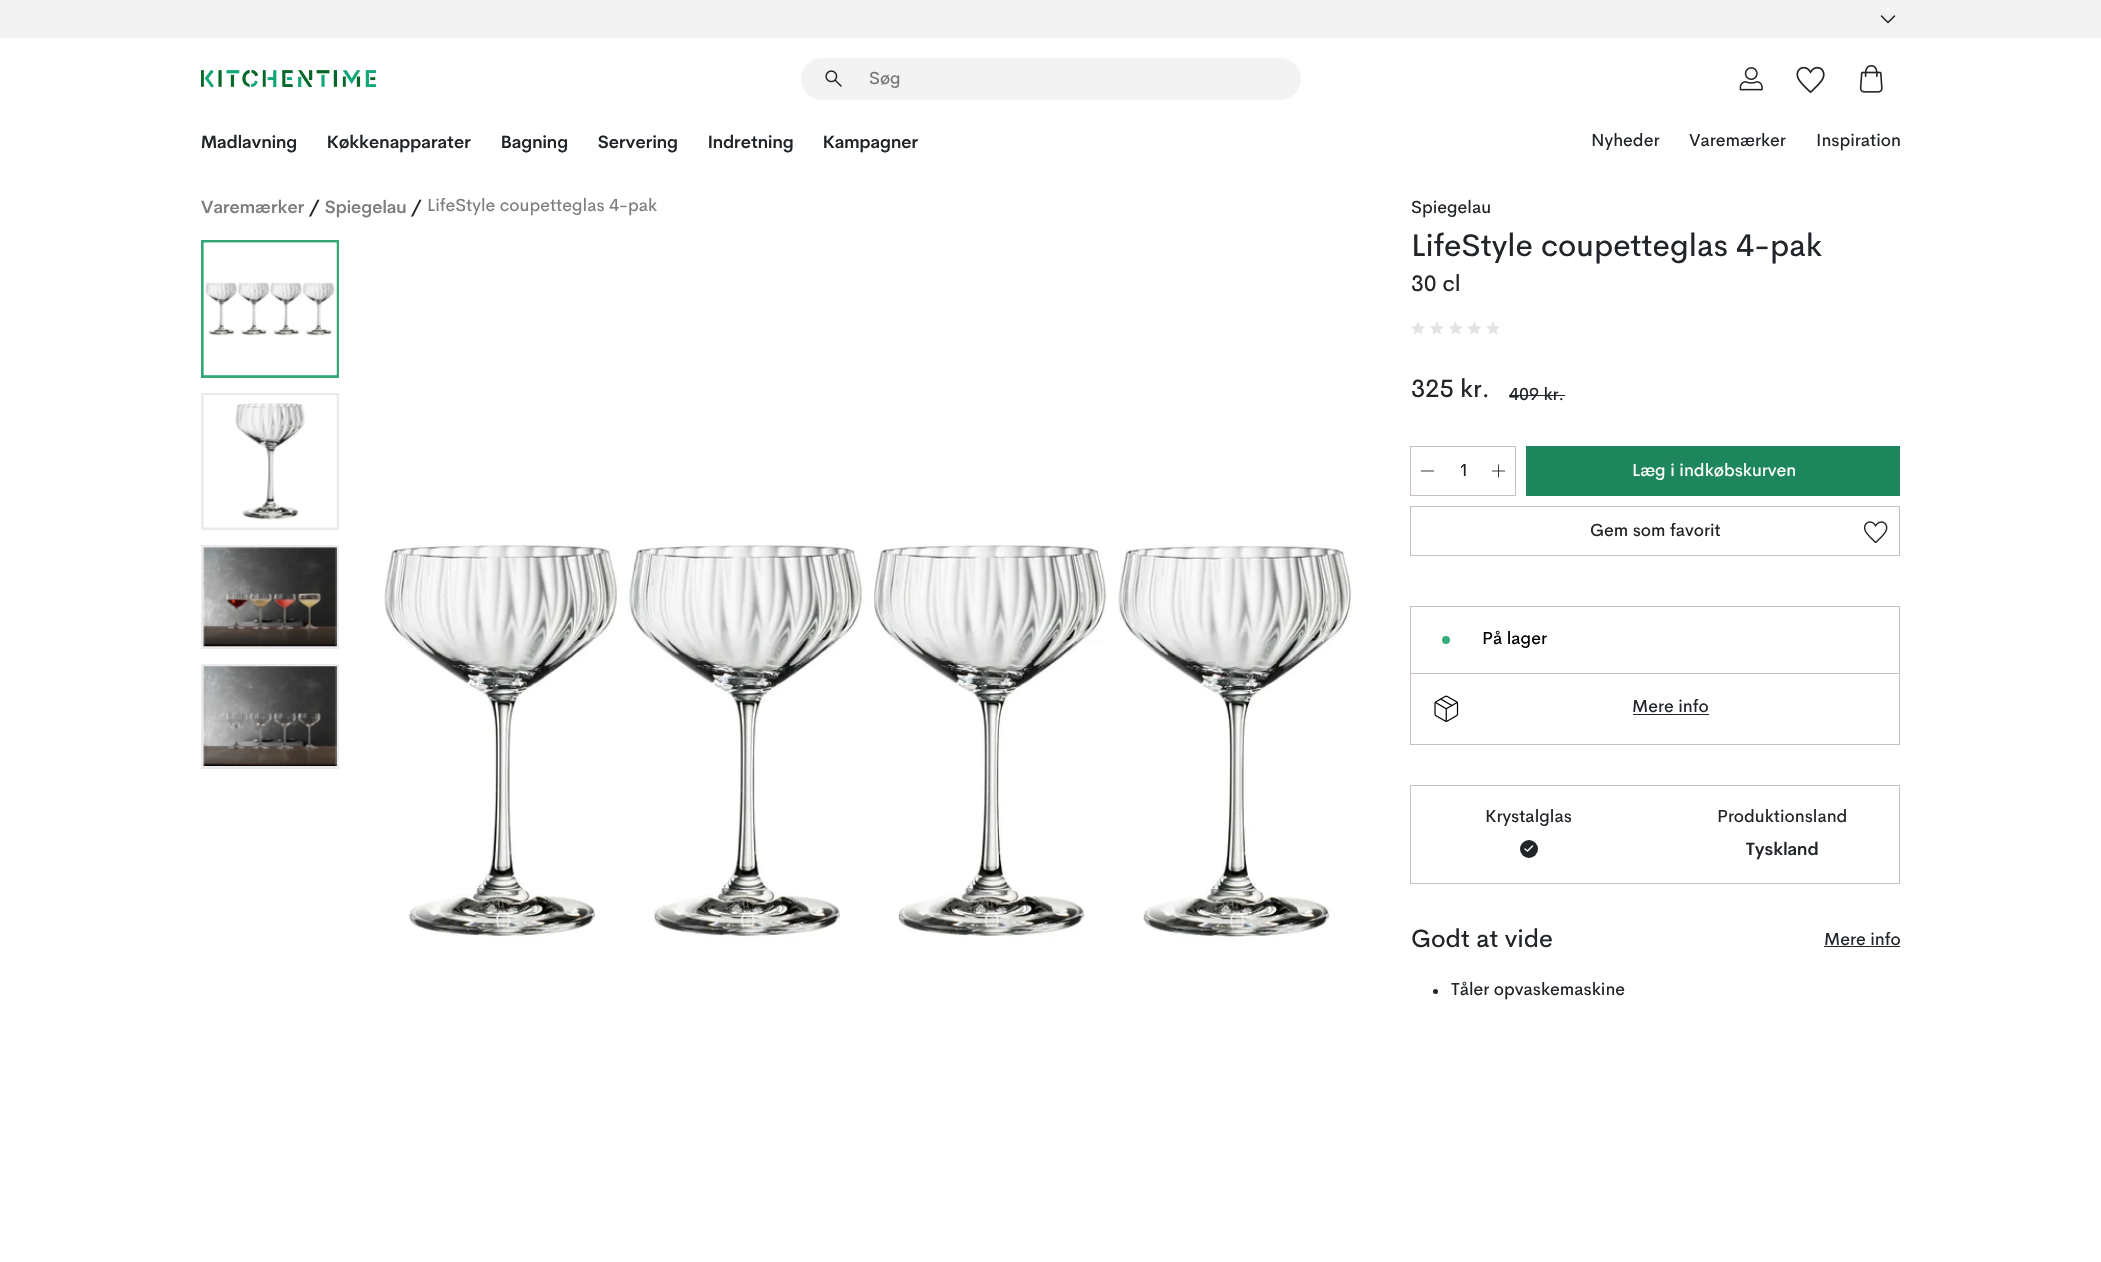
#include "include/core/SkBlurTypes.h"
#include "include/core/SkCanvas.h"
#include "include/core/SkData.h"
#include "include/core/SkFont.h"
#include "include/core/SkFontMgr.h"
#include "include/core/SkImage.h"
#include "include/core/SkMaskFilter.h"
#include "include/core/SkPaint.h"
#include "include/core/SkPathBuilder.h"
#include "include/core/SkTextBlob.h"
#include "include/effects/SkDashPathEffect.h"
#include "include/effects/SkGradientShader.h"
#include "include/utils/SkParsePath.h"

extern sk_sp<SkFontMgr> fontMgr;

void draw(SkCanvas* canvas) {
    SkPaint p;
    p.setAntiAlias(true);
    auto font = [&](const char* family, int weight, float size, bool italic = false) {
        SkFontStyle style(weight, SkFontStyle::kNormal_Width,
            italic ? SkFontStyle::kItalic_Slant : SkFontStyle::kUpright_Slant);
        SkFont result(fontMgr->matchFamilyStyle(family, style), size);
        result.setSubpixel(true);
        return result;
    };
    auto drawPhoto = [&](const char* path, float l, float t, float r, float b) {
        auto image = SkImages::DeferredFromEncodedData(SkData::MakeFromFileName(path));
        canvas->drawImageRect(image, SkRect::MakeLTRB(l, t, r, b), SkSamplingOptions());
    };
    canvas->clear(0xFFFFFFFF);
    p.setColor(0xFFF3F3F3);
    canvas->drawRect(SkRect::MakeLTRB(0, 0, 2101, 38), p);
    p.setStyle(SkPaint::kStroke_Style);
    p.setStrokeWidth(1.6f);
    p.setStrokeCap(SkPaint::kRound_Cap);
    p.setStrokeJoin(SkPaint::kRound_Join);
    p.setColor(0xFF212529);
    canvas->drawPath(SkPathBuilder().moveTo(1881.5f, 16).lineTo(1888, 22.5f).lineTo(1894.5f, 16).detach(), p);
    drawPhoto("media/1.png", 201, 70, 376, 88);
    p.setStyle(SkPaint::kFill_Style);
    p.setColor(0xFFF3F3F3);
    canvas->drawRoundRect(SkRect::MakeLTRB(801, 58, 1301, 100), 21, 21, p);
    drawPhoto("media/2.png", 825, 70, 842, 87);
    auto font1 = font("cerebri", 400, 17.5f);
    p.setColor(0xFF757575);
    canvas->drawString("Søg", 869, 84, font1, p);
    drawPhoto("media/3.png", 1739, 67, 1763, 91);
    drawPhoto("media/4.png", 1796, 66, 1825, 93);
    drawPhoto("media/5.png", 1859, 65, 1883, 93);
    auto font2 = font("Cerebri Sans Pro", 600, 17.5f);
    p.setColor(0xFF212529);
    {
        const struct { const char* s; float x, y; } items[] = {
            {"Madlavning", 201, 148},
            {"Køkkenapparater", 327, 148},
            {"Bagning", 501, 148},
            {"Servering", 598, 148},
            {"Indretning", 708, 148},
            {"Kampagner", 823, 148},
        };
        for (auto [s, x, y] : items) {
            canvas->drawString(s, x, y, font2, p);
        }
    }
    {
        const struct { const char* s; float x, y; } items[] = {
            {"Nyheder", 1591, 146},
            {"Varemærker", 1689, 146},
            {"Inspiration", 1816, 146},
        };
        for (auto [s, x, y] : items) {
            canvas->drawString(s, x, y, font1, p);
        }
    }
    p.setColor(0xFF7E7E7E);
    canvas->drawString("Varemærker", 201, 213, font2, p);
    p.setColor(0xFF212529);
    canvas->drawString("/", 309, 213, font2, p);
    p.setColor(0xFF7E7E7E);
    canvas->drawString("Spiegelau", 325, 213, font2, p);
    p.setColor(0xFF212529);
    canvas->drawString("/", 411, 213, font2, p);
    p.setColor(0xFF7E7E7E);
    canvas->drawString("LifeStyle coupetteglas 4-pak", 427, 211, font1, p);
    p.setStyle(SkPaint::kStroke_Style);
    p.setStrokeWidth(3);
    p.setStrokeCap(SkPaint::kButt_Cap);
    p.setStrokeJoin(SkPaint::kMiter_Join);
    p.setColor(0xFF32A778);
    canvas->drawRect(SkRect::MakeLTRB(202.5f, 241.5f, 337.5f, 376.5f), p);
    drawPhoto("media/6.png", 203, 242, 337, 376);
    p.setColor(0xFFEBEBEB);
    canvas->drawRect(SkRect::MakeLTRB(202.5f, 394.5f, 337.5f, 528.5f), p);
    drawPhoto("media/7.png", 203, 395, 337, 528);
    canvas->drawRect(SkRect::MakeLTRB(202.5f, 546.5f, 337.5f, 647.5f), p);
    drawPhoto("media/8.png", 203, 547, 337, 647);
    canvas->drawRect(SkRect::MakeLTRB(202.5f, 665.5f, 337.5f, 767.5f), p);
    drawPhoto("media/9.png", 203, 666, 337, 766);
    drawPhoto("media/10.png", 381, 544, 1352, 940);
    p.setStyle(SkPaint::kFill_Style);
    p.setColor(0xFF212529);
    canvas->drawString("Spiegelau", 1411, 213, font1, p);
    auto font3 = font("cerebri", 400, 31.25f);
    canvas->drawString("LifeStyle coupetteglas 4-pak", 1411, 256, font3, p);
    auto font4 = font("cerebri", 400, 22.5f);
    canvas->drawString("30 cl", 1411, 291, font4, p);
    p.setColor(0xFFE3E3E3);
    canvas->drawPath(SkPathBuilder().moveTo(1418, 332).lineTo(1413.5f, 334.5f).lineTo(1415, 330).lineTo(1411, 326.5f).lineTo(1416, 326).lineTo(1418, 321).lineTo(1420, 326).lineTo(1425, 326.5f).lineTo(1421.5f, 330).lineTo(1422.5f, 334.5f).close().moveTo(1437, 332).lineTo(1441, 334.5f).lineTo(1440, 330).lineTo(1444, 326.5f).lineTo(1439, 326).lineTo(1437, 321).lineTo(1435, 326).lineTo(1429.5f, 326.5f).lineTo(1433.5f, 330).lineTo(1432.5f, 334.5f).close().moveTo(1455.5f, 332).lineTo(1460, 334.5f).lineTo(1459, 330).lineTo(1462.5f, 326.5f).lineTo(1457.5f, 326).lineTo(1455.5f, 321).lineTo(1453.5f, 326).lineTo(1448.5f, 326.5f).lineTo(1452.5f, 330).lineTo(1451, 334.5f).close().detach(), p);
    canvas->drawPath(SkPathBuilder().moveTo(1474.5f, 332).lineTo(1470, 334.5f).lineTo(1471, 330).lineTo(1467, 326.5f).lineTo(1472.5f, 326).lineTo(1474.5f, 321).lineTo(1476.5f, 326).lineTo(1481, 326.5f).lineTo(1481, 327).lineTo(1477.5f, 330).lineTo(1478.5f, 334.5f).close().moveTo(1493, 332).lineTo(1488.5f, 334.5f).lineTo(1490, 330).lineTo(1486, 326.5f).lineTo(1491, 326).lineTo(1493, 321).lineTo(1495, 326).lineTo(1500, 326.5f).lineTo(1496.5f, 330).lineTo(1497.5f, 334.5f).close().detach(), p);
    auto font5 = font("cerebri", 400, 25);
    p.setColor(0xFF212529);
    canvas->drawString("325 kr.", 1411, 397, font5, p);
    canvas->drawString("409 kr.", 1509, 400, font1, p);
    canvas->drawRect(SkRect::MakeLTRB(1509, 395, 1565, 396), p);
    p.setStyle(SkPaint::kStroke_Style);
    p.setStrokeWidth(1);
    p.setColor(0xFFC9C0BB);
    canvas->drawRect(SkRect::MakeLTRB(1410.5f, 446.5f, 1515.5f, 495.5f), p);
    p.setStrokeWidth(0.9f);
    p.setColor(0xFF212529);
    canvas->drawPath(SkPathBuilder().moveTo(1421, 471).lineTo(1434, 471).detach(), p);
    p.setStyle(SkPaint::kFill_Style);
    canvas->drawString("1", 1459, 476, font1, p);
    p.setStyle(SkPaint::kStroke_Style);
    canvas->drawPath(SkPathBuilder().moveTo(1498.5f, 464.5f).lineTo(1498.5f, 477.5f).moveTo(1492, 471).lineTo(1505, 471).detach(), p);
    p.setStyle(SkPaint::kFill_Style);
    p.setColor(0xFF1E865C);
    canvas->drawRect(SkRect::MakeLTRB(1526, 446, 1900, 496), p);
    p.setColor(0xFFFFFFFF);
    canvas->drawString("Læg i indkøbskurven", 1632, 476, font1, p);
    p.setStyle(SkPaint::kStroke_Style);
    p.setStrokeWidth(1);
    p.setColor(0xFFC9C0BB);
    canvas->drawRect(SkRect::MakeLTRB(1410.5f, 506.5f, 1899.5f, 555.5f), p);
    p.setStyle(SkPaint::kFill_Style);
    p.setColor(0xFF222222);
    canvas->drawString("Gem som favorit", 1590, 536, font1, p);
    drawPhoto("media/11.png", 1864, 521, 1888, 543);
    p.setStyle(SkPaint::kStroke_Style);
    p.setColor(0xFFC9C0BB);
    canvas->drawRect(SkRect::MakeLTRB(1410.5f, 606.5f, 1899.5f, 673.5f), p);
    p.setStyle(SkPaint::kFill_Style);
    p.setColor(0xFF35AE7D);
    canvas->drawCircle(1446, 640, 4, p);
    p.setColor(0xFF000000);
    canvas->drawString("På lager", 1482, 644, font1, p);
    {
        const struct { float l, t, r, b; SkColor color; } items[] = {
            {1899, 674, 1900, 745, 0xFFC9C0BB},
            {1410, 744, 1900, 745, 0xFFC9C0BB},
            {1410, 674, 1411, 745, 0xFFC9C0BB},
        };
        for (auto [l, t, r, b, color] : items) {
            p.setColor(color);
            canvas->drawRect(SkRect::MakeLTRB(l, t, r, b), p);
        }
    }
    drawPhoto("media/12.png", 1434, 695, 1459, 722);
    p.setColor(0xFF212529);
    canvas->drawString("Mere info", 1632, 712, font1, p);
    canvas->drawRect(SkRect::MakeLTRB(1633, 714, 1709, 715), p);
    p.setStyle(SkPaint::kStroke_Style);
    p.setColor(0xFFC9C0BB);
    canvas->drawRect(SkRect::MakeLTRB(1410.5f, 785.5f, 1899.5f, 883.5f), p);
    p.setStyle(SkPaint::kFill_Style);
    p.setColor(0xFF212529);
    canvas->drawString("Krystalglas", 1485, 822, font1, p);
    canvas->drawCircle(1529, 849, 9, p);
    p.setStyle(SkPaint::kStroke_Style);
    p.setStrokeWidth(1.5f);
    p.setStrokeCap(SkPaint::kRound_Cap);
    p.setStrokeJoin(SkPaint::kRound_Join);
    p.setColor(0xFFFAFAFA);
    canvas->drawPath(SkPathBuilder().moveTo(1532.5f, 846).lineTo(1527.5f, 851).lineTo(1525, 849).detach(), p);
    p.setStyle(SkPaint::kFill_Style);
    p.setColor(0xFF212529);
    canvas->drawString("Produktionsland", 1717, 822, font1, p);
    canvas->drawString("Tyskland", 1746, 855, font2, p);
    canvas->drawString("Godt at vide", 1411, 947, font5, p);
    canvas->drawString("Mere info", 1824, 945, font1, p);
    canvas->drawRect(SkRect::MakeLTRB(1824, 946, 1900, 947), p);
    canvas->drawCircle(1435.5f, 991.5f, 2.5f, p);
    canvas->drawString("Tåler opvaskemaskine", 1451, 995, font1, p);
}
